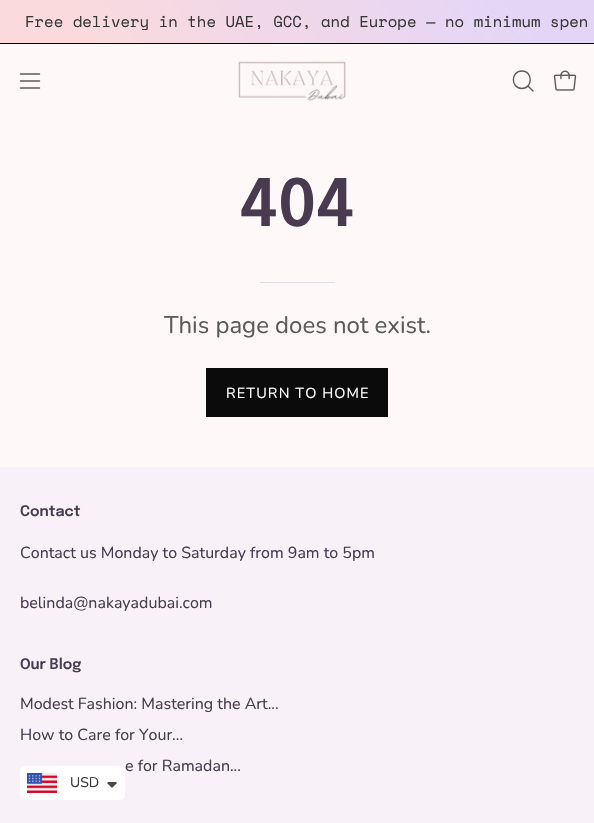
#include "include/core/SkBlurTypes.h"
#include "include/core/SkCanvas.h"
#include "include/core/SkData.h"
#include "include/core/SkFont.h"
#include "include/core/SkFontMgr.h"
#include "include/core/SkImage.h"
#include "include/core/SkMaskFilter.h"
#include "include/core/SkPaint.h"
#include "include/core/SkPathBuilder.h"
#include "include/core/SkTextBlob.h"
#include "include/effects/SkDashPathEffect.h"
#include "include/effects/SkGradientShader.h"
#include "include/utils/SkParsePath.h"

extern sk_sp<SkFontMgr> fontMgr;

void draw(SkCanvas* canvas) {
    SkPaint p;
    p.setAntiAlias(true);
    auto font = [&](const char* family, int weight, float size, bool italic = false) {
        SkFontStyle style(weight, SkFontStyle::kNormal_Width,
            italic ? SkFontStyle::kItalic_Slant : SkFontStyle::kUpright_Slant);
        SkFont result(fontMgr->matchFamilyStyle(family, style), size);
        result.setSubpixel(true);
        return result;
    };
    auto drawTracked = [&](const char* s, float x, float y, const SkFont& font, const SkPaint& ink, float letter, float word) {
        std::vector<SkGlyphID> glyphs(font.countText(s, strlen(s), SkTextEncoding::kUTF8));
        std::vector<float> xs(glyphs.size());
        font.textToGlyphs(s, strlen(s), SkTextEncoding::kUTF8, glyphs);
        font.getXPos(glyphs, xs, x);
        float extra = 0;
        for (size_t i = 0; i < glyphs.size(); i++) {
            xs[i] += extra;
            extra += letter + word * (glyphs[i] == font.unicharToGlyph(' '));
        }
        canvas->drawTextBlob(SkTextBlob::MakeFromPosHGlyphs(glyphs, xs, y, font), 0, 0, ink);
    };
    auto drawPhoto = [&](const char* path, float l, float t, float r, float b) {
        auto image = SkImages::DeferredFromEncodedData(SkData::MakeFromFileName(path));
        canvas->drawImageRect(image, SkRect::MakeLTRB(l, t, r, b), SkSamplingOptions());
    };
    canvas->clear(0xFFFFF8F9);
    {
        const SkColor colors[] = {0xFFFADADD, 0xFFE4D5F7};
        const float stops[] = {0.15f, 0.87f};
        const SkPoint ends[] = {{117, 179}, {477, -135}};
        p.setShader(SkGradientShader::MakeLinear(ends, colors, stops, 2, SkTileMode::kClamp));
        p.setAlpha(255);
    }
    canvas->drawRect(SkRect::MakeLTRB(0, 0, 594, 43), p);
    p.setShader(nullptr);
    p.setColor(0xFF000000);
    canvas->drawRect(SkRect::MakeLTRB(0, 43, 594, 44), p);
    auto font1 = font("Space Mono", 400, 15.6f);
    p.setColor(0xFF363636);
    canvas->drawString("Free delivery in the UAE, GCC, and Europe — no minimum spen", 25, 27, font1, p);
    p.setStyle(SkPaint::kStroke_Style);
    p.setStrokeWidth(1.5f);
    p.setStrokeCap(SkPaint::kRound_Cap);
    p.setStrokeJoin(SkPaint::kRound_Join);
    p.setColor(0xFF5A5A5A);
    canvas->drawPath(SkPathBuilder().moveTo(20.5f, 81).lineTo(39.5f, 81).moveTo(20.5f, 74).lineTo(39.5f, 74).moveTo(20.5f, 88).lineTo(39.5f, 88).detach(), p);
    drawPhoto("media/1.png", 238, 61, 346, 101);
    p.setStrokeWidth(1.4f);
    canvas->drawPath(SkPathBuilder().moveTo(522, 88.5f).cubicTo(533, 88.5f, 533, 71, 522, 71).cubicTo(510.5f, 71, 510.5f, 88.5f, 522, 88.5f).close().moveTo(528, 86).lineTo(533, 91).detach(), p);
    drawPhoto("media/2.png", 553, 70, 577, 91);
    auto font2 = font("Epilogue", 600, 65);
    p.setStyle(SkPaint::kFill_Style);
    p.setColor(0xFF4A3A4F);
    canvas->drawString("404", 240, 226, font2, p);
    p.setColor(0xFFE5DCE8);
    canvas->drawRect(SkRect::MakeLTRB(260, 282, 335, 283), p);
    auto font3 = font("Nunito", 400, 24);
    p.setColor(0xFF5A5A5A);
    canvas->drawString("This page does not exist.", 164, 333, font3, p);
    p.setColor(0xFF0B0B0B);
    canvas->drawRect(SkRect::MakeLTRB(206, 368, 388, 417), p);
    auto font4 = font("Nunito", 400, 14.5f);
    p.setColor(0xFFFFFFFF);
    drawTracked("RETURN TO HOME", 226, 398, font4, p, 1.1f, 0);
    p.setColor(0xFFF8F1F8);
    canvas->drawRect(SkRect::MakeLTRB(0, 467, 594, 823), p);
    auto font5 = font("Epilogue", 600, 14.5f);
    p.setColor(0xFF4A3A4F);
    canvas->drawString("Contact", 20, 516, font5, p);
    auto font6 = font("Nunito", 400, 16);
    canvas->drawString("Contact us Monday to Saturday from 9am to 5pm", 20, 558, font6, p);
    canvas->drawString("belinda@nakayadubai.com", 20, 608, font6, p);
    canvas->drawString("Our Blog", 20, 669, font5, p);
    {
        const struct { const char* s; float x, y; } items[] = {
            {"Modest Fashion: Mastering the Art...", 20, 709},
            {"How to Care for Your...", 20, 740},
            {"e for Ramadan...", 125, 771},
        };
        for (auto [s, x, y] : items) {
            canvas->drawString(s, x, y, font6, p);
        }
    }
    p.setColor(0xFFFFFFFF);
    canvas->drawRoundRect(SkRect::MakeLTRB(20, 766, 125, 800), 5, 5, p);
    drawPhoto("media/3.png", 27, 773, 57, 793);
    auto font7 = font("Nunito", 400, 14);
    p.setColor(0xFF363636);
    canvas->drawString("USD", 70, 787, font7, p);
    p.setColor(0xFF474942);
    canvas->drawPath(SkPathBuilder().moveTo(109, 782).cubicTo(108, 782, 107.5f, 782.5f, 107, 783).lineTo(112, 788).lineTo(117, 783).lineTo(116, 782).close().detach(), p);
}
